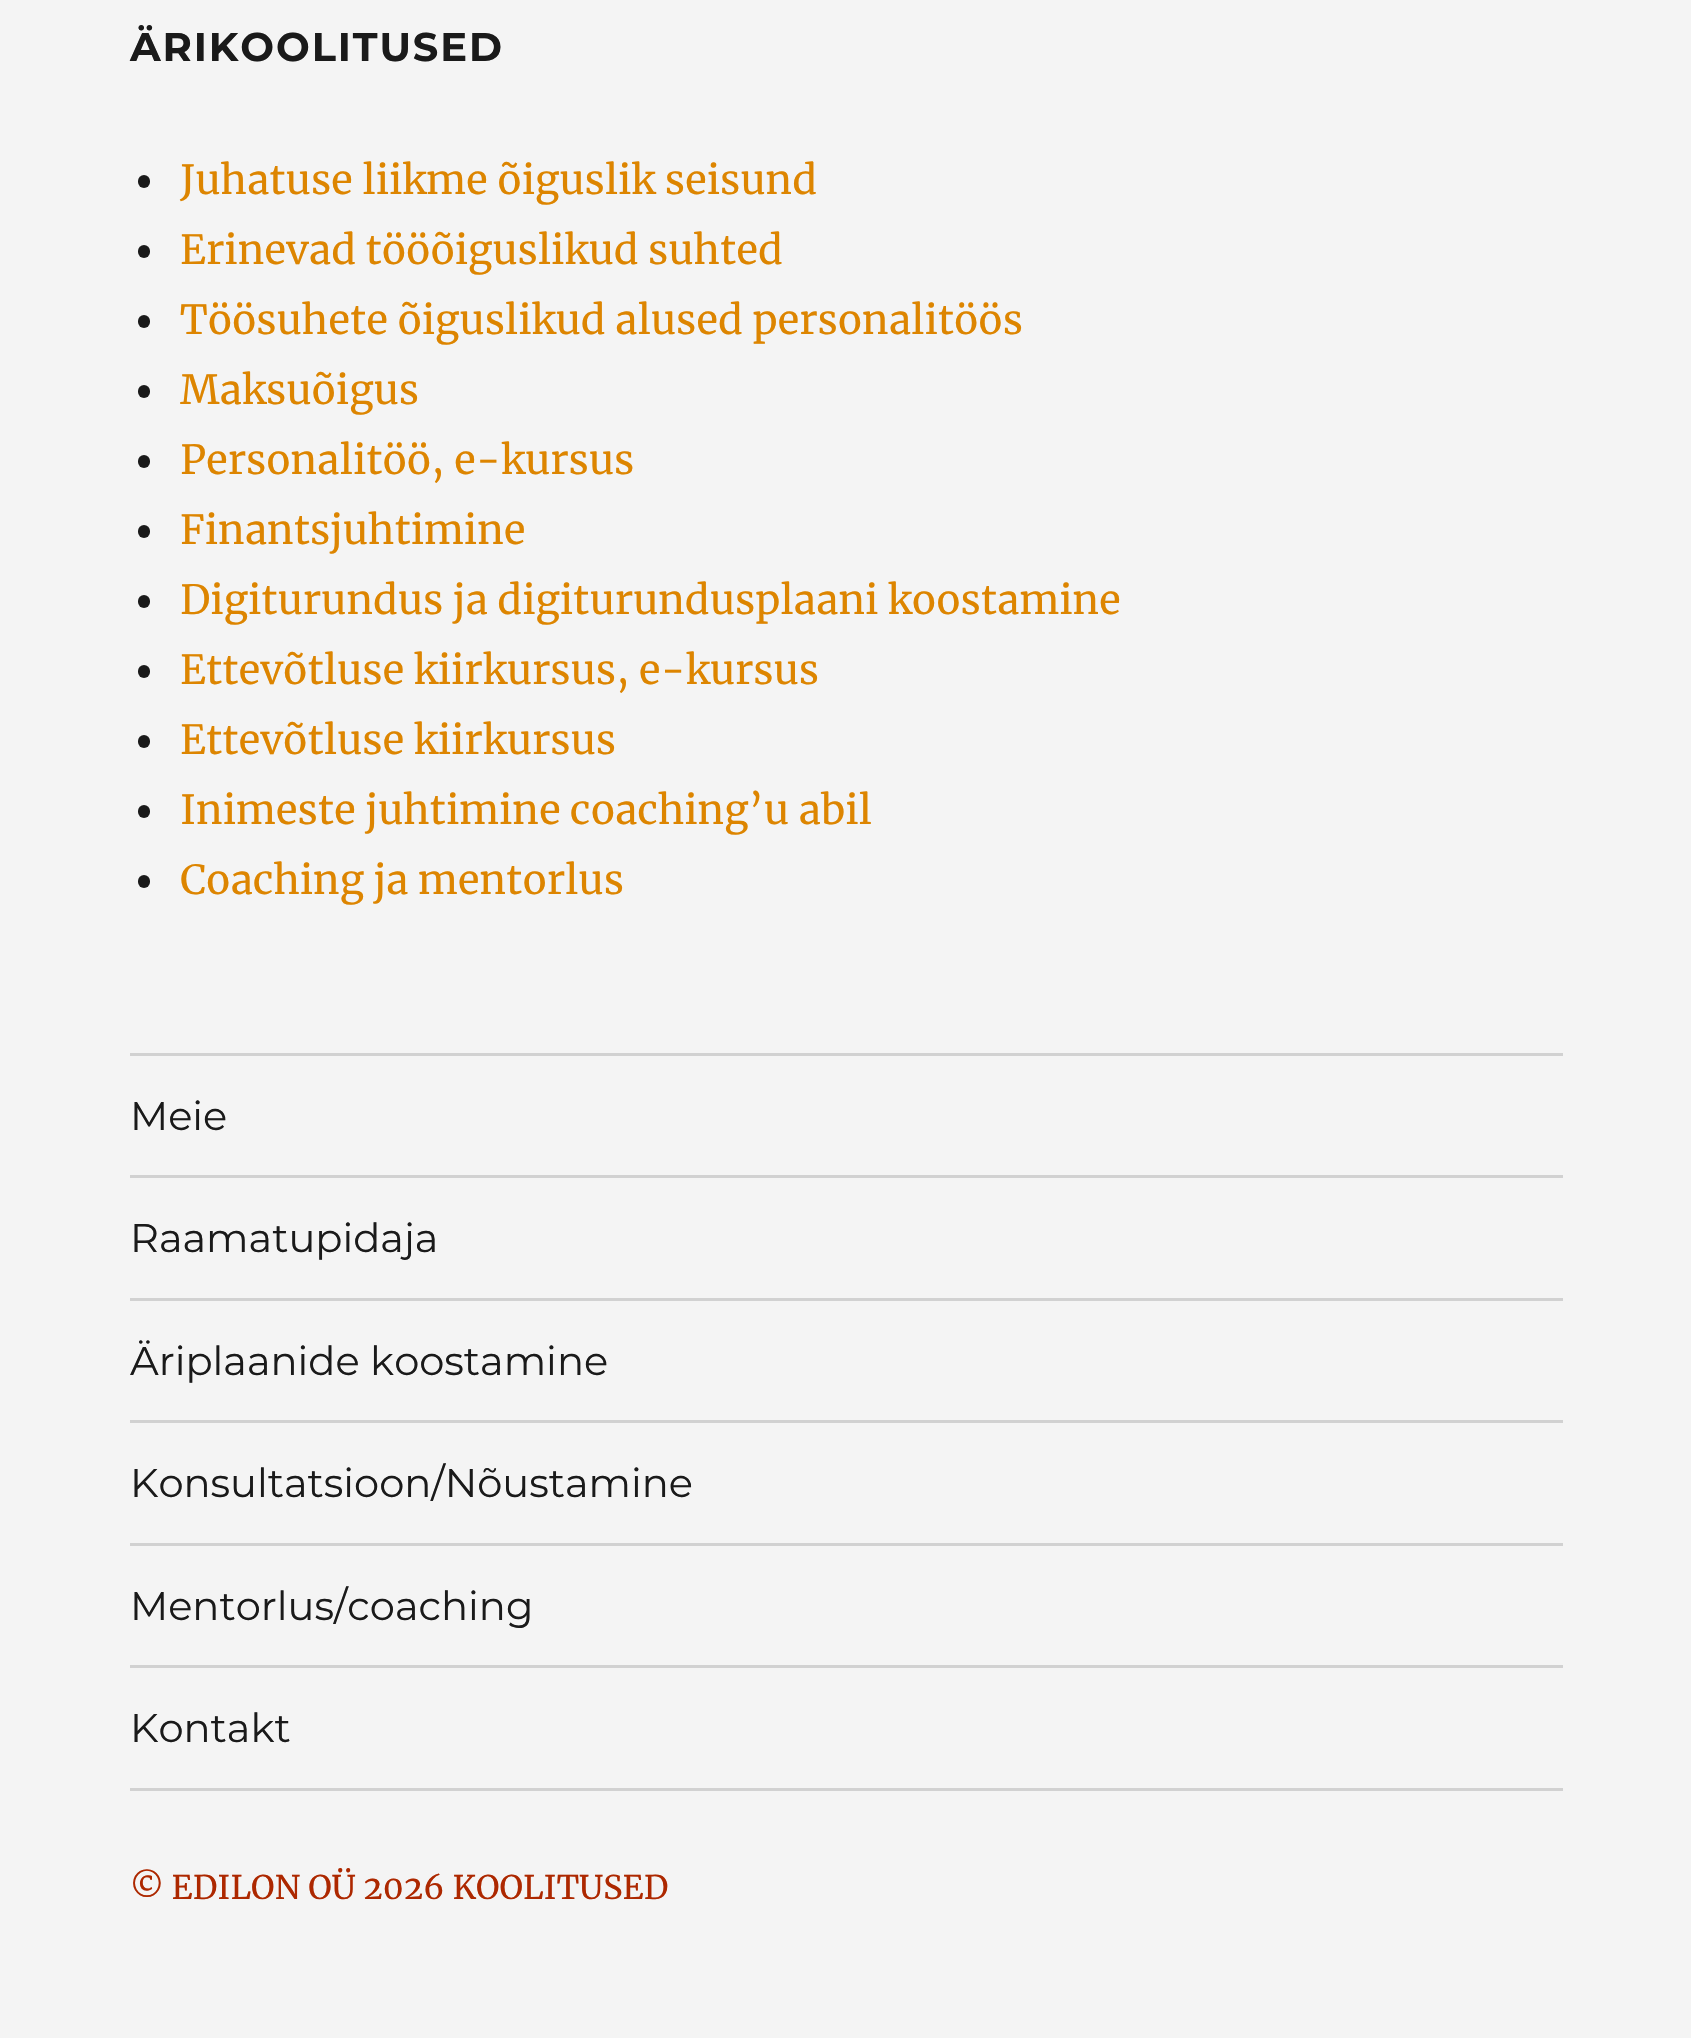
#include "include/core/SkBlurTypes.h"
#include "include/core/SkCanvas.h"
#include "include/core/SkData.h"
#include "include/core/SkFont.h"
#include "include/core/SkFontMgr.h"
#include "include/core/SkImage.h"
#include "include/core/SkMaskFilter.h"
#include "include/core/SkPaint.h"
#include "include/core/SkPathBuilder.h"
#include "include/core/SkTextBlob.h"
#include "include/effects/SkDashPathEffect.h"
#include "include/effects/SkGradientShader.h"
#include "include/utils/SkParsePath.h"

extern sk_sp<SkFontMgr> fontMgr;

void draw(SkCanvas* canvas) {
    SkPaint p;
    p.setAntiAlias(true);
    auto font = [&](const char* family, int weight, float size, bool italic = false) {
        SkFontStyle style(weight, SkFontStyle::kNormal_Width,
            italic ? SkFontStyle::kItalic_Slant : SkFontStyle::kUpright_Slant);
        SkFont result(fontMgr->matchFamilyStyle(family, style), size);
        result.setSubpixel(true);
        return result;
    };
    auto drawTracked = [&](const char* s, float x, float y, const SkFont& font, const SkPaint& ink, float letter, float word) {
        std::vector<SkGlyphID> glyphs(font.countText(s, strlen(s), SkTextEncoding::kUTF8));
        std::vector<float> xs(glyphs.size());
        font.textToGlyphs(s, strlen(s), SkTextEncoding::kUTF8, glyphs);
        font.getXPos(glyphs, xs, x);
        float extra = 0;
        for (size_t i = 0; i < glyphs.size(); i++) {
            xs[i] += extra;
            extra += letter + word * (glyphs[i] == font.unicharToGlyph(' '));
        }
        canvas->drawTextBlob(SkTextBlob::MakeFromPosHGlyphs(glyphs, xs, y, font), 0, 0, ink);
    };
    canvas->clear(0xFFF4F4F4);
    auto font1 = font("Montserrat", 100, 40);
    p.setColor(0xFF1A1A1A);
    drawTracked("ÄRIKOOLITUSED", 130, 61, font1, p, 1.9f, 0);
    canvas->drawRoundRect(SkRect::MakeLTRB(138, 175, 150, 188), 6, 6, p);
    auto font2 = font("Merriweather", 400, 40);
    p.setColor(0xFFDD8500);
    canvas->drawString("Juhatuse liikme õiguslik seisund", 180, 194, font2, p);
    p.setColor(0xFF1A1A1A);
    canvas->drawRoundRect(SkRect::MakeLTRB(138, 245, 150, 258), 6, 6, p);
    p.setColor(0xFFDD8500);
    canvas->drawString("Erinevad tööõiguslikud suhted", 180, 264, font2, p);
    p.setColor(0xFF1A1A1A);
    canvas->drawRoundRect(SkRect::MakeLTRB(138, 315, 150, 328), 6, 6, p);
    p.setColor(0xFFDD8500);
    canvas->drawString("Töösuhete õiguslikud alused personalitöös", 180, 334, font2, p);
    p.setColor(0xFF1A1A1A);
    canvas->drawRoundRect(SkRect::MakeLTRB(138, 385, 150, 398), 6, 6, p);
    p.setColor(0xFFDD8500);
    canvas->drawString("Maksuõigus", 180, 404, font2, p);
    p.setColor(0xFF1A1A1A);
    canvas->drawRoundRect(SkRect::MakeLTRB(138, 455, 150, 468), 6, 6, p);
    p.setColor(0xFFDD8500);
    canvas->drawString("Personalitöö, e-kursus", 180, 474, font2, p);
    p.setColor(0xFF1A1A1A);
    canvas->drawRoundRect(SkRect::MakeLTRB(138, 525, 150, 538), 6, 6, p);
    p.setColor(0xFFDD8500);
    canvas->drawString("Finantsjuhtimine", 180, 544, font2, p);
    p.setColor(0xFF1A1A1A);
    canvas->drawRoundRect(SkRect::MakeLTRB(138, 595, 150, 608), 6, 6, p);
    p.setColor(0xFFDD8500);
    canvas->drawString("Digiturundus ja digiturundusplaani koostamine", 180, 614, font2, p);
    p.setColor(0xFF1A1A1A);
    canvas->drawRoundRect(SkRect::MakeLTRB(138, 665, 150, 678), 6, 6, p);
    p.setColor(0xFFDD8500);
    canvas->drawString("Ettevõtluse kiirkursus, e-kursus", 180, 684, font2, p);
    p.setColor(0xFF1A1A1A);
    canvas->drawRoundRect(SkRect::MakeLTRB(138, 735, 150, 748), 6, 6, p);
    p.setColor(0xFFDD8500);
    canvas->drawString("Ettevõtluse kiirkursus", 180, 754, font2, p);
    p.setColor(0xFF1A1A1A);
    canvas->drawRoundRect(SkRect::MakeLTRB(138, 805, 150, 818), 6, 6, p);
    p.setColor(0xFFDD8500);
    canvas->drawString("Inimeste juhtimine coaching’u abil", 180, 824, font2, p);
    p.setColor(0xFF1A1A1A);
    canvas->drawRoundRect(SkRect::MakeLTRB(138, 875, 150, 888), 6, 6, p);
    p.setColor(0xFFDD8500);
    canvas->drawString("Coaching ja mentorlus", 180, 894, font2, p);
    p.setColor(0xFFD1D1D1);
    canvas->drawRect(SkRect::MakeLTRB(130, 1788, 1563, 1791), p);
    canvas->drawRect(SkRect::MakeLTRB(130, 1053, 1563, 1056), p);
    auto font3 = font("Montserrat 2", 100, 40);
    p.setColor(0xFF1A1A1A);
    canvas->drawString("Meie", 130, 1130, font3, p);
    p.setColor(0xFFD1D1D1);
    canvas->drawRect(SkRect::MakeLTRB(130, 1175, 1563, 1178), p);
    p.setColor(0xFF1A1A1A);
    canvas->drawString("Raamatupidaja", 130, 1252, font3, p);
    p.setColor(0xFFD1D1D1);
    canvas->drawRect(SkRect::MakeLTRB(130, 1298, 1563, 1301), p);
    p.setColor(0xFF1A1A1A);
    canvas->drawString("Äriplaanide koostamine", 130, 1375, font3, p);
    p.setColor(0xFFD1D1D1);
    canvas->drawRect(SkRect::MakeLTRB(130, 1420, 1563, 1423), p);
    p.setColor(0xFF1A1A1A);
    canvas->drawString("Konsultatsioon/Nõustamine", 130, 1497, font3, p);
    p.setColor(0xFFD1D1D1);
    canvas->drawRect(SkRect::MakeLTRB(130, 1543, 1563, 1546), p);
    p.setColor(0xFF1A1A1A);
    canvas->drawString("Mentorlus/coaching", 130, 1620, font3, p);
    p.setColor(0xFFD1D1D1);
    canvas->drawRect(SkRect::MakeLTRB(130, 1665, 1563, 1668), p);
    p.setColor(0xFF1A1A1A);
    canvas->drawString("Kontakt", 130, 1742, font3, p);
    auto font4 = font("Merriweather", 400, 32.5f);
    p.setColor(0xFFAD2800);
    canvas->drawString("© EDILON OÜ 2026 KOOLITUSED", 130, 1899, font4, p);
}
